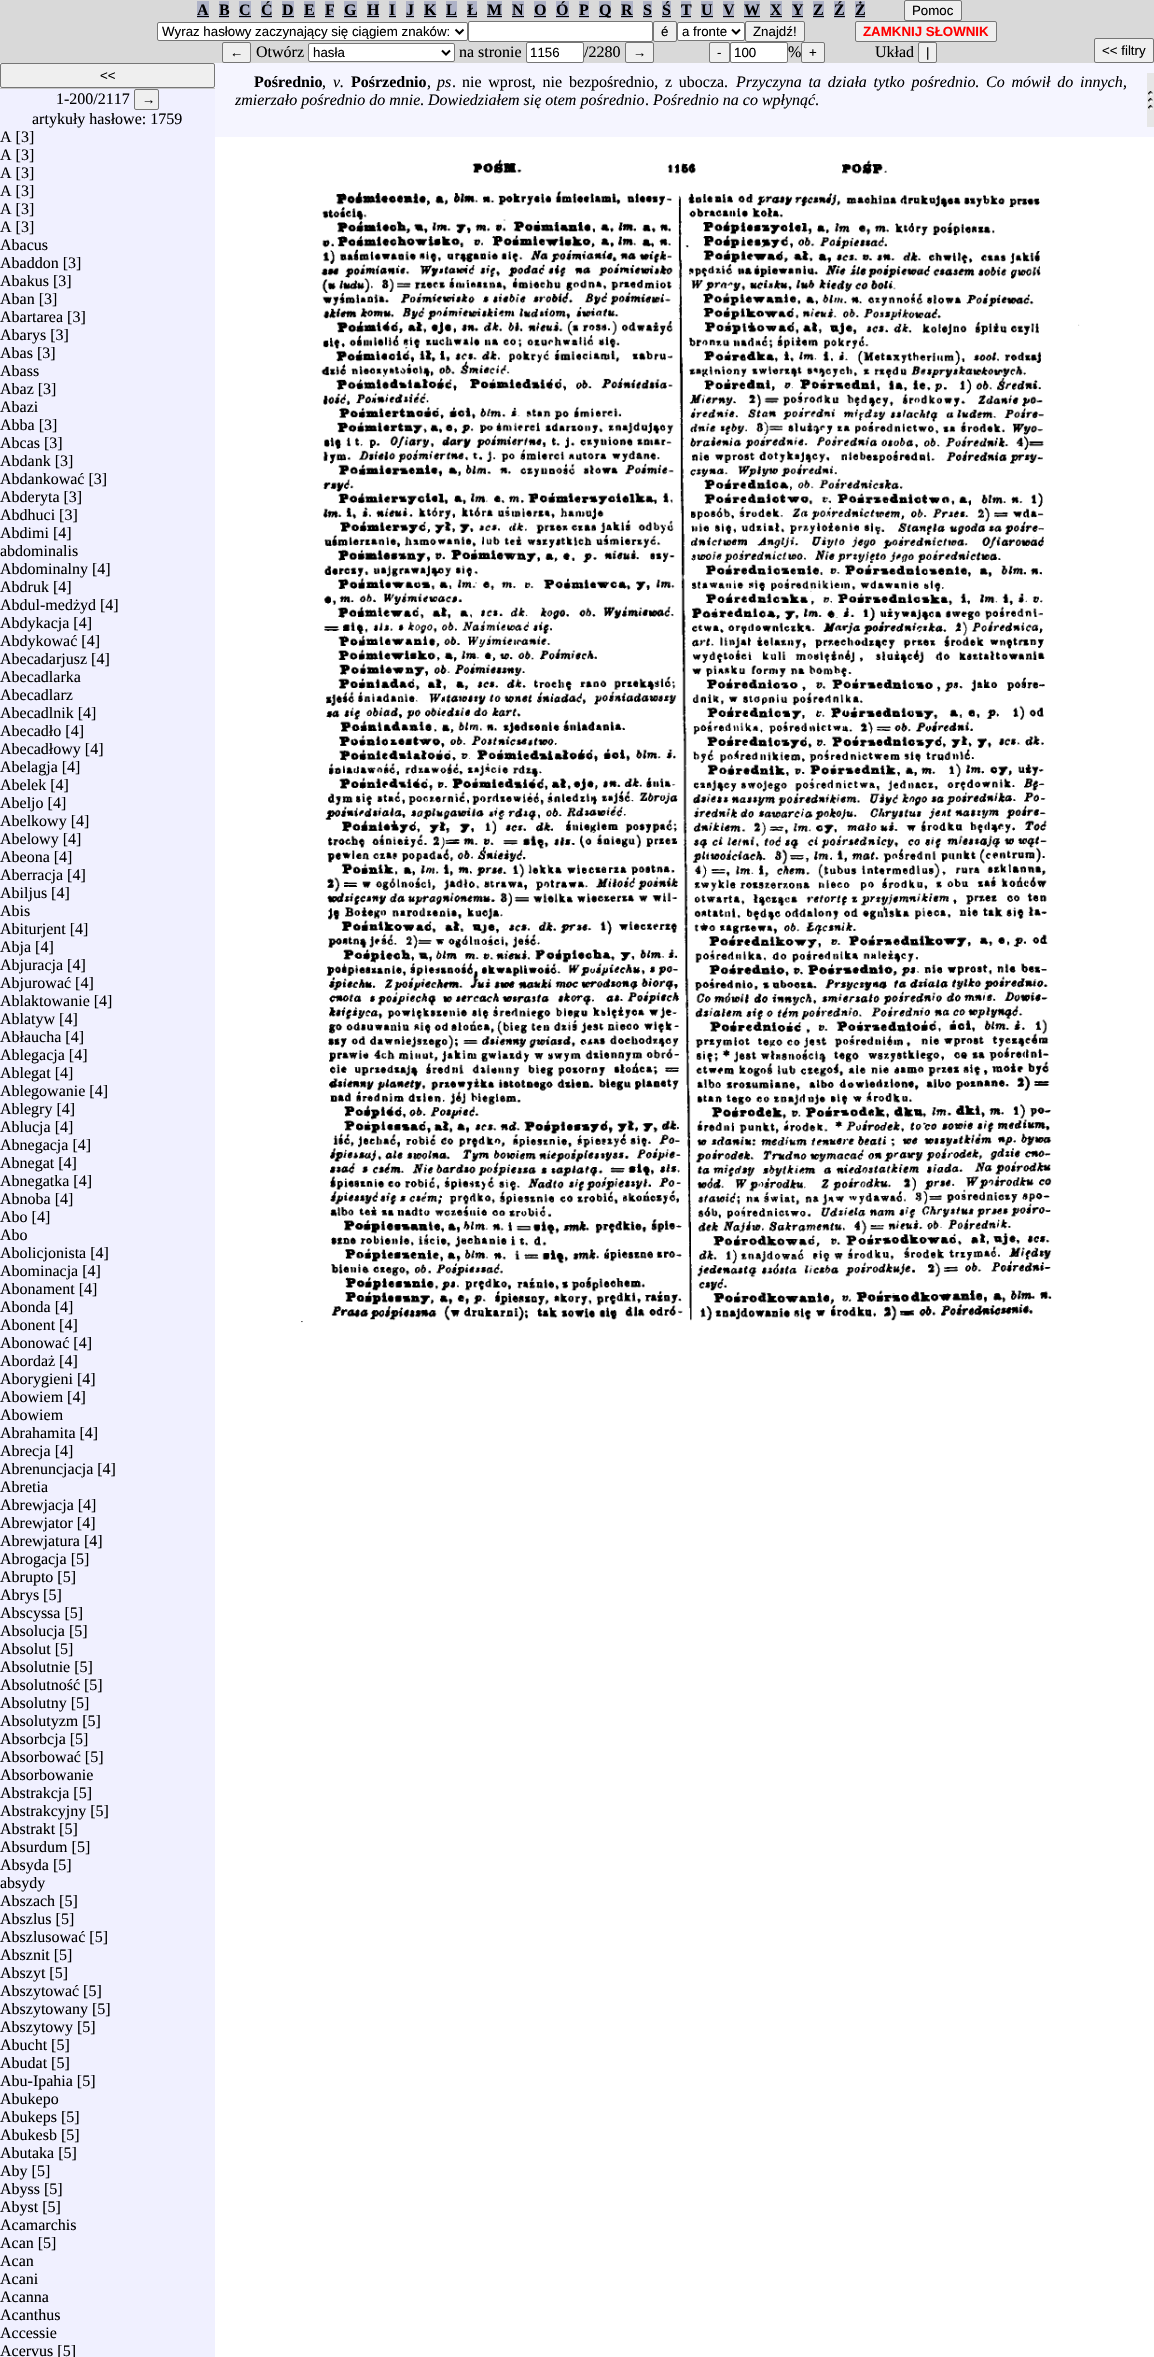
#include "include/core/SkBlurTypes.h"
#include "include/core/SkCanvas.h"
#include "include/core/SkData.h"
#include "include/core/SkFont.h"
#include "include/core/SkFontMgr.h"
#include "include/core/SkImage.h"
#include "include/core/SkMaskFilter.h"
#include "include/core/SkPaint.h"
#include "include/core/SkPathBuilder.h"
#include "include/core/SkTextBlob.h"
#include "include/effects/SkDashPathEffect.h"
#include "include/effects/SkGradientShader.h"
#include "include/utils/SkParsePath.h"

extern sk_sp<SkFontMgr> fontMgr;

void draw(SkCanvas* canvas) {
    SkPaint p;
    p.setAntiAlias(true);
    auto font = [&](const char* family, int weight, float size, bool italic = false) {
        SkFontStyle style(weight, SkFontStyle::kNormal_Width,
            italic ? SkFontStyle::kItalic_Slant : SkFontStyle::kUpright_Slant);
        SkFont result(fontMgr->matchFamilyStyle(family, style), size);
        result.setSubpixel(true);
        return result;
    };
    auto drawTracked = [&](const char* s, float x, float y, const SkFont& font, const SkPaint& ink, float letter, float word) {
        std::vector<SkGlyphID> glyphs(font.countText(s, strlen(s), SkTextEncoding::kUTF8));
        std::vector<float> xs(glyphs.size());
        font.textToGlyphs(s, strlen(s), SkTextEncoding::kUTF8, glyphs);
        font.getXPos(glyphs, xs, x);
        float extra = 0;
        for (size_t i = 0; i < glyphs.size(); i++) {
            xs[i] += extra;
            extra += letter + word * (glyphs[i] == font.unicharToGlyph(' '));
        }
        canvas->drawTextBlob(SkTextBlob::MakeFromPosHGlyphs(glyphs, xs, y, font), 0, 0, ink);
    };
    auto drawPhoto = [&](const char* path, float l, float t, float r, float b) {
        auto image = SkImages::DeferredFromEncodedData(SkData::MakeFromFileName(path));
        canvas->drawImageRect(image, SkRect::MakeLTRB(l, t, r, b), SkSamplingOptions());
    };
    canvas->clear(0xFFFFFFFF);
    p.setColor(0xFFD9D9D9);
    canvas->drawRect(SkRect::MakeLTRB(0, 0, 1154, 63), p);
    p.setColor(0xFFAEB2C7);
    canvas->drawRect(SkRect::MakeLTRB(197, 1, 209, 18), p);
    auto font1 = font("Liberation Serif", 700, 16);
    p.setColor(0xFF000000);
    canvas->drawString("A", 197, 15, font1, p);
    canvas->drawRect(SkRect::MakeLTRB(197, 16, 209, 17), p);
    p.setColor(0xFFAEB2C7);
    canvas->drawRect(SkRect::MakeLTRB(219, 1, 229, 18), p);
    p.setColor(0xFF000000);
    canvas->drawString("B", 219, 15, font1, p);
    canvas->drawRect(SkRect::MakeLTRB(219, 16, 229, 17), p);
    p.setColor(0xFFAEB2C7);
    canvas->drawRect(SkRect::MakeLTRB(239, 1, 251, 18), p);
    p.setColor(0xFF000000);
    canvas->drawString("C", 239, 15, font1, p);
    canvas->drawRect(SkRect::MakeLTRB(239, 16, 251, 17), p);
    p.setColor(0xFFAEB2C7);
    canvas->drawRect(SkRect::MakeLTRB(261, 1, 272, 18), p);
    p.setColor(0xFF000000);
    canvas->drawString("Ć", 261, 15, font1, p);
    canvas->drawRect(SkRect::MakeLTRB(261, 16, 272, 17), p);
    p.setColor(0xFFAEB2C7);
    canvas->drawRect(SkRect::MakeLTRB(282, 1, 294, 18), p);
    p.setColor(0xFF000000);
    canvas->drawString("D", 282, 15, font1, p);
    canvas->drawRect(SkRect::MakeLTRB(282, 16, 294, 17), p);
    p.setColor(0xFFAEB2C7);
    canvas->drawRect(SkRect::MakeLTRB(304, 1, 315, 18), p);
    p.setColor(0xFF000000);
    canvas->drawString("E", 304, 15, font1, p);
    canvas->drawRect(SkRect::MakeLTRB(304, 16, 315, 17), p);
    p.setColor(0xFFAEB2C7);
    canvas->drawRect(SkRect::MakeLTRB(325, 1, 334, 18), p);
    p.setColor(0xFF000000);
    canvas->drawString("F", 325, 15, font1, p);
    canvas->drawRect(SkRect::MakeLTRB(325, 16, 334, 17), p);
    p.setColor(0xFFAEB2C7);
    canvas->drawRect(SkRect::MakeLTRB(344, 1, 357, 18), p);
    p.setColor(0xFF000000);
    canvas->drawString("G", 344, 15, font1, p);
    canvas->drawRect(SkRect::MakeLTRB(344, 16, 357, 17), p);
    p.setColor(0xFFAEB2C7);
    canvas->drawRect(SkRect::MakeLTRB(367, 1, 379, 18), p);
    p.setColor(0xFF000000);
    canvas->drawString("H", 367, 15, font1, p);
    canvas->drawRect(SkRect::MakeLTRB(367, 16, 379, 17), p);
    p.setColor(0xFFAEB2C7);
    canvas->drawRect(SkRect::MakeLTRB(389, 1, 396, 18), p);
    p.setColor(0xFF000000);
    canvas->drawString("I", 389, 15, font1, p);
    canvas->drawRect(SkRect::MakeLTRB(389, 16, 396, 17), p);
    p.setColor(0xFFAEB2C7);
    canvas->drawRect(SkRect::MakeLTRB(406, 1, 414, 18), p);
    p.setColor(0xFF000000);
    canvas->drawString("J", 406, 15, font1, p);
    canvas->drawRect(SkRect::MakeLTRB(406, 16, 414, 17), p);
    p.setColor(0xFFAEB2C7);
    canvas->drawRect(SkRect::MakeLTRB(424, 1, 436, 18), p);
    p.setColor(0xFF000000);
    canvas->drawString("K", 424, 15, font1, p);
    canvas->drawRect(SkRect::MakeLTRB(424, 16, 436, 17), p);
    p.setColor(0xFFAEB2C7);
    canvas->drawRect(SkRect::MakeLTRB(446, 1, 457, 18), p);
    p.setColor(0xFF000000);
    canvas->drawString("L", 446, 15, font1, p);
    canvas->drawRect(SkRect::MakeLTRB(446, 16, 457, 17), p);
    p.setColor(0xFFAEB2C7);
    canvas->drawRect(SkRect::MakeLTRB(467, 1, 477, 18), p);
    p.setColor(0xFF000000);
    canvas->drawString("Ł", 467, 15, font1, p);
    canvas->drawRect(SkRect::MakeLTRB(467, 16, 477, 17), p);
    p.setColor(0xFFAEB2C7);
    canvas->drawRect(SkRect::MakeLTRB(487, 1, 502, 18), p);
    p.setColor(0xFF000000);
    canvas->drawString("M", 487, 15, font1, p);
    canvas->drawRect(SkRect::MakeLTRB(487, 16, 502, 17), p);
    p.setColor(0xFFAEB2C7);
    canvas->drawRect(SkRect::MakeLTRB(512, 1, 524, 18), p);
    p.setColor(0xFF000000);
    canvas->drawString("N", 512, 15, font1, p);
    canvas->drawRect(SkRect::MakeLTRB(512, 16, 524, 17), p);
    p.setColor(0xFFAEB2C7);
    canvas->drawRect(SkRect::MakeLTRB(534, 1, 546, 18), p);
    p.setColor(0xFF000000);
    canvas->drawString("O", 534, 15, font1, p);
    canvas->drawRect(SkRect::MakeLTRB(534, 16, 546, 17), p);
    p.setColor(0xFFAEB2C7);
    canvas->drawRect(SkRect::MakeLTRB(556, 1, 569, 18), p);
    p.setColor(0xFF000000);
    canvas->drawString("Ó", 556, 15, font1, p);
    canvas->drawRect(SkRect::MakeLTRB(556, 16, 569, 17), p);
    p.setColor(0xFFAEB2C7);
    canvas->drawRect(SkRect::MakeLTRB(579, 1, 589, 18), p);
    p.setColor(0xFF000000);
    canvas->drawString("P", 579, 15, font1, p);
    {
        const struct { float l, t, r, b; SkColor color; } items[] = {
            {579, 16, 589, 17, 0xFF000000},
            {599, 1, 611, 18, 0xFFAEB2C7},
            {599, 16, 611, 17, 0xFF000000},
        };
        for (auto [l, t, r, b, color] : items) {
            p.setColor(color);
            canvas->drawRect(SkRect::MakeLTRB(l, t, r, b), p);
        }
    }
    canvas->drawString("Q", 599, 15, font1, p);
    p.setColor(0xFFAEB2C7);
    canvas->drawRect(SkRect::MakeLTRB(621, 1, 633, 18), p);
    p.setColor(0xFF000000);
    canvas->drawString("R", 621, 15, font1, p);
    canvas->drawRect(SkRect::MakeLTRB(621, 16, 633, 17), p);
    p.setColor(0xFFAEB2C7);
    canvas->drawRect(SkRect::MakeLTRB(643, 1, 652, 18), p);
    p.setColor(0xFF000000);
    canvas->drawString("S", 643, 15, font1, p);
    canvas->drawRect(SkRect::MakeLTRB(643, 16, 652, 17), p);
    p.setColor(0xFFAEB2C7);
    canvas->drawRect(SkRect::MakeLTRB(662, 1, 671, 18), p);
    p.setColor(0xFF000000);
    canvas->drawString("Ś", 662, 15, font1, p);
    canvas->drawRect(SkRect::MakeLTRB(662, 16, 671, 17), p);
    p.setColor(0xFFAEB2C7);
    canvas->drawRect(SkRect::MakeLTRB(681, 1, 691, 18), p);
    p.setColor(0xFF000000);
    canvas->drawString("T", 681, 15, font1, p);
    canvas->drawRect(SkRect::MakeLTRB(681, 16, 691, 17), p);
    p.setColor(0xFFAEB2C7);
    canvas->drawRect(SkRect::MakeLTRB(701, 1, 713, 18), p);
    p.setColor(0xFF000000);
    canvas->drawString("U", 701, 15, font1, p);
    canvas->drawRect(SkRect::MakeLTRB(701, 16, 713, 17), p);
    p.setColor(0xFFAEB2C7);
    canvas->drawRect(SkRect::MakeLTRB(723, 1, 734, 18), p);
    p.setColor(0xFF000000);
    canvas->drawString("V", 723, 15, font1, p);
    canvas->drawRect(SkRect::MakeLTRB(723, 16, 734, 17), p);
    p.setColor(0xFFAEB2C7);
    canvas->drawRect(SkRect::MakeLTRB(744, 1, 760, 18), p);
    p.setColor(0xFF000000);
    canvas->drawString("W", 744, 15, font1, p);
    canvas->drawRect(SkRect::MakeLTRB(744, 16, 760, 17), p);
    p.setColor(0xFFAEB2C7);
    canvas->drawRect(SkRect::MakeLTRB(770, 1, 782, 18), p);
    p.setColor(0xFF000000);
    canvas->drawString("X", 770, 15, font1, p);
    canvas->drawRect(SkRect::MakeLTRB(770, 16, 782, 17), p);
    p.setColor(0xFFAEB2C7);
    canvas->drawRect(SkRect::MakeLTRB(792, 1, 803, 18), p);
    p.setColor(0xFF000000);
    canvas->drawString("Y", 792, 15, font1, p);
    canvas->drawRect(SkRect::MakeLTRB(792, 16, 803, 17), p);
    p.setColor(0xFFAEB2C7);
    canvas->drawRect(SkRect::MakeLTRB(813, 1, 824, 18), p);
    p.setColor(0xFF000000);
    canvas->drawString("Z", 813, 15, font1, p);
    canvas->drawRect(SkRect::MakeLTRB(813, 16, 824, 17), p);
    p.setColor(0xFFAEB2C7);
    canvas->drawRect(SkRect::MakeLTRB(834, 1, 845, 18), p);
    p.setColor(0xFF000000);
    canvas->drawString("Ź", 834, 15, font1, p);
    canvas->drawRect(SkRect::MakeLTRB(834, 16, 845, 17), p);
    p.setColor(0xFFAEB2C7);
    canvas->drawRect(SkRect::MakeLTRB(855, 1, 865, 18), p);
    p.setColor(0xFF000000);
    canvas->drawString("Ż", 855, 15, font1, p);
    canvas->drawRect(SkRect::MakeLTRB(855, 16, 865, 17), p);
    p.setColor(0xFFEFEFEF);
    canvas->drawRoundRect(SkRect::MakeLTRB(904.5f, 0.5f, 961.5f, 20.5f), 1.5f, 1.5f, p);
    p.setStyle(SkPaint::kStroke_Style);
    p.setStrokeWidth(1);
    p.setColor(0xFF767676);
    canvas->drawRoundRect(SkRect::MakeLTRB(904.5f, 0.5f, 961.5f, 20.5f), 1.5f, 1.5f, p);
    auto font2 = font("Liberation Sans", 400, 13.3f);
    p.setStyle(SkPaint::kFill_Style);
    p.setColor(0xFF000000);
    canvas->drawString("Pomoc", 912, 15, font2, p);
    p.setColor(0xFFFFFFFF);
    canvas->drawRoundRect(SkRect::MakeLTRB(157.5f, 22.5f, 467.5f, 40.5f), 1.5f, 1.5f, p);
    p.setStyle(SkPaint::kStroke_Style);
    p.setColor(0xFF767676);
    canvas->drawRoundRect(SkRect::MakeLTRB(157.5f, 22.5f, 467.5f, 40.5f), 1.5f, 1.5f, p);
    p.setStrokeWidth(2);
    p.setColor(0xFF000000);
    canvas->drawPath(SkPathBuilder().moveTo(455.5f, 29.5f).lineTo(459.5f, 33.5f).lineTo(463.5f, 29.5f).detach(), p);
    p.setStyle(SkPaint::kFill_Style);
    canvas->drawString("Wyraz hasłowy zaczynający się ciągiem znaków:", 162, 36, font2, p);
    p.setColor(0xFFFFFFFF);
    canvas->drawRoundRect(SkRect::MakeLTRB(468.5f, 21.5f, 652.5f, 41.5f), 1.5f, 1.5f, p);
    p.setStyle(SkPaint::kStroke_Style);
    p.setStrokeWidth(1);
    p.setColor(0xFF767676);
    canvas->drawRoundRect(SkRect::MakeLTRB(468.5f, 21.5f, 652.5f, 41.5f), 1.5f, 1.5f, p);
    p.setStyle(SkPaint::kFill_Style);
    p.setColor(0xFFEFEFEF);
    canvas->drawRoundRect(SkRect::MakeLTRB(653.5f, 21.5f, 676.5f, 41.5f), 1.5f, 1.5f, p);
    p.setStyle(SkPaint::kStroke_Style);
    p.setColor(0xFF767676);
    canvas->drawRoundRect(SkRect::MakeLTRB(653.5f, 21.5f, 676.5f, 41.5f), 1.5f, 1.5f, p);
    p.setStyle(SkPaint::kFill_Style);
    p.setColor(0xFF000000);
    canvas->drawString("é", 661, 36, font2, p);
    p.setColor(0xFFFFFFFF);
    canvas->drawRoundRect(SkRect::MakeLTRB(677.5f, 22.5f, 744.5f, 40.5f), 1.5f, 1.5f, p);
    p.setStyle(SkPaint::kStroke_Style);
    p.setColor(0xFF767676);
    canvas->drawRoundRect(SkRect::MakeLTRB(677.5f, 22.5f, 744.5f, 40.5f), 1.5f, 1.5f, p);
    p.setStrokeWidth(2);
    p.setColor(0xFF000000);
    canvas->drawPath(SkPathBuilder().moveTo(732, 29.5f).lineTo(736, 33.5f).lineTo(740, 29.5f).detach(), p);
    p.setStyle(SkPaint::kFill_Style);
    canvas->drawString("a fronte", 682, 36, font2, p);
    p.setColor(0xFFEFEFEF);
    canvas->drawRoundRect(SkRect::MakeLTRB(745.5f, 21.5f, 804.5f, 41.5f), 1.5f, 1.5f, p);
    p.setStyle(SkPaint::kStroke_Style);
    p.setStrokeWidth(1);
    p.setColor(0xFF767676);
    canvas->drawRoundRect(SkRect::MakeLTRB(745.5f, 21.5f, 804.5f, 41.5f), 1.5f, 1.5f, p);
    p.setStyle(SkPaint::kFill_Style);
    p.setColor(0xFF000000);
    canvas->drawString("Znajdź!", 753, 36, font2, p);
    p.setColor(0xFFEFEFEF);
    canvas->drawRoundRect(SkRect::MakeLTRB(855.5f, 21.5f, 996.5f, 41.5f), 1.5f, 1.5f, p);
    p.setStyle(SkPaint::kStroke_Style);
    p.setColor(0xFF767676);
    canvas->drawRoundRect(SkRect::MakeLTRB(855.5f, 21.5f, 996.5f, 41.5f), 1.5f, 1.5f, p);
    auto font3 = font("Liberation Sans", 700, 13.3f);
    p.setStyle(SkPaint::kFill_Style);
    p.setColor(0xFFFF0000);
    canvas->drawString("ZAMKNIJ SŁOWNIK", 863, 36, font3, p);
    p.setColor(0xFFEFEFEF);
    canvas->drawRoundRect(SkRect::MakeLTRB(222.5f, 42.5f, 250.5f, 62.5f), 1.5f, 1.5f, p);
    p.setStyle(SkPaint::kStroke_Style);
    p.setColor(0xFF767676);
    canvas->drawRoundRect(SkRect::MakeLTRB(222.5f, 42.5f, 250.5f, 62.5f), 1.5f, 1.5f, p);
    p.setStyle(SkPaint::kFill_Style);
    p.setColor(0xFF000000);
    canvas->drawString("←", 230, 57, font2, p);
    auto font4 = font("Liberation Serif", 400, 16);
    canvas->drawString("Otwórz", 256, 57, font4, p);
    p.setColor(0xFFFFFFFF);
    canvas->drawRoundRect(SkRect::MakeLTRB(308.5f, 43.5f, 454.5f, 61.5f), 1.5f, 1.5f, p);
    p.setStyle(SkPaint::kStroke_Style);
    p.setColor(0xFF767676);
    canvas->drawRoundRect(SkRect::MakeLTRB(308.5f, 43.5f, 454.5f, 61.5f), 1.5f, 1.5f, p);
    p.setStrokeWidth(2);
    p.setColor(0xFF000000);
    canvas->drawPath(SkPathBuilder().moveTo(442, 50.5f).lineTo(446, 54.5f).lineTo(450, 50.5f).detach(), p);
    p.setStyle(SkPaint::kFill_Style);
    canvas->drawString("hasła", 313, 57, font2, p);
    canvas->drawString("na stronie", 459, 57, font4, p);
    p.setColor(0xFFFFFFFF);
    canvas->drawRoundRect(SkRect::MakeLTRB(526.5f, 42.5f, 583.5f, 62.5f), 1.5f, 1.5f, p);
    p.setStyle(SkPaint::kStroke_Style);
    p.setStrokeWidth(1);
    p.setColor(0xFF767676);
    canvas->drawRoundRect(SkRect::MakeLTRB(526.5f, 42.5f, 583.5f, 62.5f), 1.5f, 1.5f, p);
    p.setStyle(SkPaint::kFill_Style);
    p.setColor(0xFF000000);
    canvas->drawString("1156", 530, 57, font2, p);
    canvas->drawString("/2280", 584, 57, font4, p);
    p.setColor(0xFFEFEFEF);
    canvas->drawRoundRect(SkRect::MakeLTRB(625.5f, 42.5f, 653.5f, 62.5f), 1.5f, 1.5f, p);
    p.setStyle(SkPaint::kStroke_Style);
    p.setColor(0xFF767676);
    canvas->drawRoundRect(SkRect::MakeLTRB(625.5f, 42.5f, 653.5f, 62.5f), 1.5f, 1.5f, p);
    p.setStyle(SkPaint::kFill_Style);
    p.setColor(0xFF000000);
    canvas->drawString("→", 633, 57, font2, p);
    p.setColor(0xFFEFEFEF);
    canvas->drawRoundRect(SkRect::MakeLTRB(709.5f, 42.5f, 729.5f, 62.5f), 1.5f, 1.5f, p);
    p.setStyle(SkPaint::kStroke_Style);
    p.setColor(0xFF767676);
    canvas->drawRoundRect(SkRect::MakeLTRB(709.5f, 42.5f, 729.5f, 62.5f), 1.5f, 1.5f, p);
    p.setStyle(SkPaint::kFill_Style);
    p.setColor(0xFF000000);
    canvas->drawString("-", 717, 57, font2, p);
    p.setColor(0xFFFFFFFF);
    canvas->drawRoundRect(SkRect::MakeLTRB(730.5f, 42.5f, 787.5f, 62.5f), 1.5f, 1.5f, p);
    p.setStyle(SkPaint::kStroke_Style);
    p.setColor(0xFF767676);
    canvas->drawRoundRect(SkRect::MakeLTRB(730.5f, 42.5f, 787.5f, 62.5f), 1.5f, 1.5f, p);
    p.setStyle(SkPaint::kFill_Style);
    p.setColor(0xFF000000);
    canvas->drawString("100", 734, 57, font2, p);
    canvas->drawString("%", 788, 57, font4, p);
    p.setColor(0xFFEFEFEF);
    canvas->drawRoundRect(SkRect::MakeLTRB(801.5f, 42.5f, 824.5f, 62.5f), 1.5f, 1.5f, p);
    p.setStyle(SkPaint::kStroke_Style);
    p.setColor(0xFF767676);
    canvas->drawRoundRect(SkRect::MakeLTRB(801.5f, 42.5f, 824.5f, 62.5f), 1.5f, 1.5f, p);
    p.setStyle(SkPaint::kFill_Style);
    p.setColor(0xFF000000);
    canvas->drawString("+", 809, 57, font2, p);
    canvas->drawString("Układ", 875, 57, font4, p);
    p.setColor(0xFFEFEFEF);
    canvas->drawRoundRect(SkRect::MakeLTRB(918.5f, 42.5f, 936.5f, 62.5f), 1.5f, 1.5f, p);
    p.setStyle(SkPaint::kStroke_Style);
    p.setColor(0xFF767676);
    canvas->drawRoundRect(SkRect::MakeLTRB(918.5f, 42.5f, 936.5f, 62.5f), 1.5f, 1.5f, p);
    p.setStyle(SkPaint::kFill_Style);
    p.setColor(0xFF000000);
    canvas->drawString("|", 926, 57, font2, p);
    p.setColor(0xFFEFEFEF);
    canvas->drawRoundRect(SkRect::MakeLTRB(1094.5f, 38.5f, 1153.5f, 62.5f), 1.5f, 1.5f, p);
    p.setStyle(SkPaint::kStroke_Style);
    p.setColor(0xFF767676);
    canvas->drawRoundRect(SkRect::MakeLTRB(1094.5f, 38.5f, 1153.5f, 62.5f), 1.5f, 1.5f, p);
    p.setStyle(SkPaint::kFill_Style);
    p.setColor(0xFF000000);
    canvas->drawString("<< filtry", 1102, 55, font2, p);
    p.setColor(0xFFEFEFEF);
    canvas->drawRoundRect(SkRect::MakeLTRB(0.5f, 63.5f, 214.5f, 87.5f), 1.5f, 1.5f, p);
    p.setStyle(SkPaint::kStroke_Style);
    p.setColor(0xFF767676);
    canvas->drawRoundRect(SkRect::MakeLTRB(0.5f, 63.5f, 214.5f, 87.5f), 1.5f, 1.5f, p);
    p.setStyle(SkPaint::kFill_Style);
    p.setColor(0xFF000000);
    canvas->drawString("<<", 100, 80, font2, p);
    p.setColor(0xFFF5F5FF);
    canvas->drawRect(SkRect::MakeLTRB(215, 63, 1154, 137), p);
    p.setColor(0xFF000000);
    canvas->drawString("Pośrednio", 254, 87, font1, p);
    canvas->drawString(",", 322, 87, font4, p);
    auto font5 = font("Liberation Serif", 400, 16, true);
    canvas->drawString("v.", 333, 87, font5, p);
    canvas->drawString("Pośrzednio", 351, 87, font1, p);
    canvas->drawString(",", 427, 87, font4, p);
    canvas->drawString("ps", 437, 87, font5, p);
    canvas->drawString(".", 452, 87, font4, p);
    drawTracked("nie wprost, nie bezpośrednio, z ubocza.", 462, 87, font4, p, 0, 2.75f);
    drawTracked("Przyczyna ta działa tytko pośrednio", 736, 87, font5, p, 0, 2.75f);
    canvas->drawString(".", 975, 87, font4, p);
    drawTracked("Co mówił do innych", 986, 87, font5, p, 0, 2.75f);
    canvas->drawString(",", 1123, 87, font4, p);
    p.setColor(0xFFE6E6E6);
    canvas->drawRect(SkRect::MakeLTRB(1147, 73, 1154, 127), p);
    drawPhoto("media/1.png", 1148, 91, 1153, 110);
    p.setColor(0xFF000000);
    canvas->drawString("zmierzało pośrednio do mnie", 235, 105, font5, p);
    canvas->drawString(".", 420, 105, font4, p);
    canvas->drawString("Dowiedziałem się otem pośrednio", 428, 105, font5, p);
    canvas->drawString(".", 645, 105, font4, p);
    canvas->drawString("Pośrednio na co wpłynąć", 653, 105, font5, p);
    canvas->drawString(".", 815, 105, font4, p);
    drawPhoto("media/2.png", 301, 159, 1080, 1323);
    p.setColor(0xFFF0F0FF);
    canvas->drawRect(SkRect::MakeLTRB(0, 89, 215, 2357), p);
    p.setColor(0xFFC8C8C8);
    canvas->drawRect(SkRect::MakeLTRB(0, 88, 215, 89), p);
    p.setColor(0xFF000000);
    canvas->drawString("1-200/2117", 56, 104, font4, p);
    p.setColor(0xFFEFEFEF);
    canvas->drawRoundRect(SkRect::MakeLTRB(134.5f, 89.5f, 158.5f, 109.5f), 1.5f, 1.5f, p);
    p.setStyle(SkPaint::kStroke_Style);
    p.setColor(0xFF767676);
    canvas->drawRoundRect(SkRect::MakeLTRB(134.5f, 89.5f, 158.5f, 109.5f), 1.5f, 1.5f, p);
    p.setStyle(SkPaint::kFill_Style);
    p.setColor(0xFF000000);
    canvas->drawString("→", 142, 104, font2, p);
    {
        const struct { const char* s; float x, y; } items[] = {
            {"artykuły hasłowe: 1759", 32, 124},
            {"A [3]", 0, 142},
            {"A [3]", 0, 160},
            {"A [3]", 0, 178},
            {"A [3]", 0, 196},
            {"A [3]", 0, 214},
            {"A [3]", 0, 232},
            {"Abacus", 0, 250},
            {"Abaddon [3]", 0, 268},
            {"Abakus [3]", 0, 286},
            {"Aban [3]", 0, 304},
            {"Abartarea [3]", 0, 322},
            {"Abarys [3]", 0, 340},
            {"Abas [3]", 0, 358},
            {"Abass", 0, 376},
            {"Abaz [3]", 0, 394},
            {"Abazi", 0, 412},
            {"Abba [3]", 0, 430},
            {"Abcas [3]", 0, 448},
            {"Abdank [3]", 0, 466},
            {"Abdankować [3]", 0, 484},
            {"Abderyta [3]", 0, 502},
            {"Abdhuci [3]", 0, 520},
            {"Abdimi [4]", 0, 538},
            {"abdominalis", 0, 556},
            {"Abdominalny [4]", 0, 574},
            {"Abdruk [4]", 0, 592},
            {"Abdul-medżyd [4]", 0, 610},
            {"Abdykacja [4]", 0, 628},
            {"Abdykować [4]", 0, 646},
            {"Abecadarjusz [4]", 0, 664},
            {"Abecadlarka", 0, 682},
            {"Abecadlarz", 0, 700},
            {"Abecadlnik [4]", 0, 718},
            {"Abecadło [4]", 0, 736},
            {"Abecadłowy [4]", 0, 754},
            {"Abelagja [4]", 0, 772},
            {"Abelek [4]", 0, 790},
            {"Abeljo [4]", 0, 808},
            {"Abelkowy [4]", 0, 826},
            {"Abelowy [4]", 0, 844},
            {"Abeona [4]", 0, 862},
            {"Aberracja [4]", 0, 880},
            {"Abiljus [4]", 0, 898},
            {"Abis", 0, 916},
            {"Abiturjent [4]", 0, 934},
            {"Abja [4]", 0, 952},
            {"Abjuracja [4]", 0, 970},
            {"Abjurować [4]", 0, 988},
            {"Ablaktowanie [4]", 0, 1006},
            {"Ablatyw [4]", 0, 1024},
            {"Abłaucha [4]", 0, 1042},
            {"Ablegacja [4]", 0, 1060},
            {"Ablegat [4]", 0, 1078},
            {"Ablegowanie [4]", 0, 1096},
            {"Ablegry [4]", 0, 1114},
            {"Ablucja [4]", 0, 1132},
            {"Abnegacja [4]", 0, 1150},
            {"Abnegat [4]", 0, 1168},
            {"Abnegatka [4]", 0, 1186},
            {"Abnoba [4]", 0, 1204},
            {"Abo [4]", 0, 1222},
            {"Abo", 0, 1240},
            {"Abolicjonista [4]", 0, 1258},
            {"Abominacja [4]", 0, 1276},
            {"Abonament [4]", 0, 1294},
            {"Abonda [4]", 0, 1312},
            {"Abonent [4]", 0, 1330},
            {"Abonować [4]", 0, 1348},
            {"Abordaż [4]", 0, 1366},
            {"Aborygieni [4]", 0, 1384},
            {"Abowiem [4]", 0, 1402},
            {"Abowiem", 0, 1420},
            {"Abrahamita [4]", 0, 1438},
            {"Abrecja [4]", 0, 1456},
            {"Abrenuncjacja [4]", 0, 1474},
            {"Abretia", 0, 1492},
            {"Abrewjacja [4]", 0, 1510},
            {"Abrewjator [4]", 0, 1528},
            {"Abrewjatura [4]", 0, 1546},
            {"Abrogacja [5]", 0, 1564},
            {"Abrupto [5]", 0, 1582},
            {"Abrys [5]", 0, 1600},
            {"Abscyssa [5]", 0, 1618},
            {"Absolucja [5]", 0, 1636},
            {"Absolut [5]", 0, 1654},
            {"Absolutnie [5]", 0, 1672},
            {"Absolutność [5]", 0, 1690},
            {"Absolutny [5]", 0, 1708},
            {"Absolutyzm [5]", 0, 1726},
            {"Absorbcja [5]", 0, 1744},
            {"Absorbować [5]", 0, 1762},
            {"Absorbowanie", 0, 1780},
            {"Abstrakcja [5]", 0, 1798},
            {"Abstrakcyjny [5]", 0, 1816},
            {"Abstrakt [5]", 0, 1834},
            {"Absurdum [5]", 0, 1852},
            {"Absyda [5]", 0, 1870},
            {"absydy", 0, 1888},
            {"Abszach [5]", 0, 1906},
            {"Abszlus [5]", 0, 1924},
            {"Abszlusować [5]", 0, 1942},
            {"Absznit [5]", 0, 1960},
            {"Abszyt [5]", 0, 1978},
            {"Abszytować [5]", 0, 1996},
            {"Abszytowany [5]", 0, 2014},
            {"Abszytowy [5]", 0, 2032},
            {"Abucht [5]", 0, 2050},
            {"Abudat [5]", 0, 2068},
            {"Abu-Ipahia [5]", 0, 2086},
            {"Abukepo", 0, 2104},
            {"Abukeps [5]", 0, 2122},
            {"Abukesb [5]", 0, 2140},
            {"Abutaka [5]", 0, 2158},
            {"Aby [5]", 0, 2176},
            {"Abyss [5]", 0, 2194},
            {"Abyst [5]", 0, 2212},
            {"Acamarchis", 0, 2230},
            {"Acan [5]", 0, 2248},
            {"Acan", 0, 2266},
            {"Acani", 0, 2284},
            {"Acanna", 0, 2302},
            {"Acanthus", 0, 2320},
            {"Accessie", 0, 2338},
            {"Acervus [5]", 0, 2356},
        };
        for (auto [s, x, y] : items) {
            canvas->drawString(s, x, y, font4, p);
        }
    }
}
